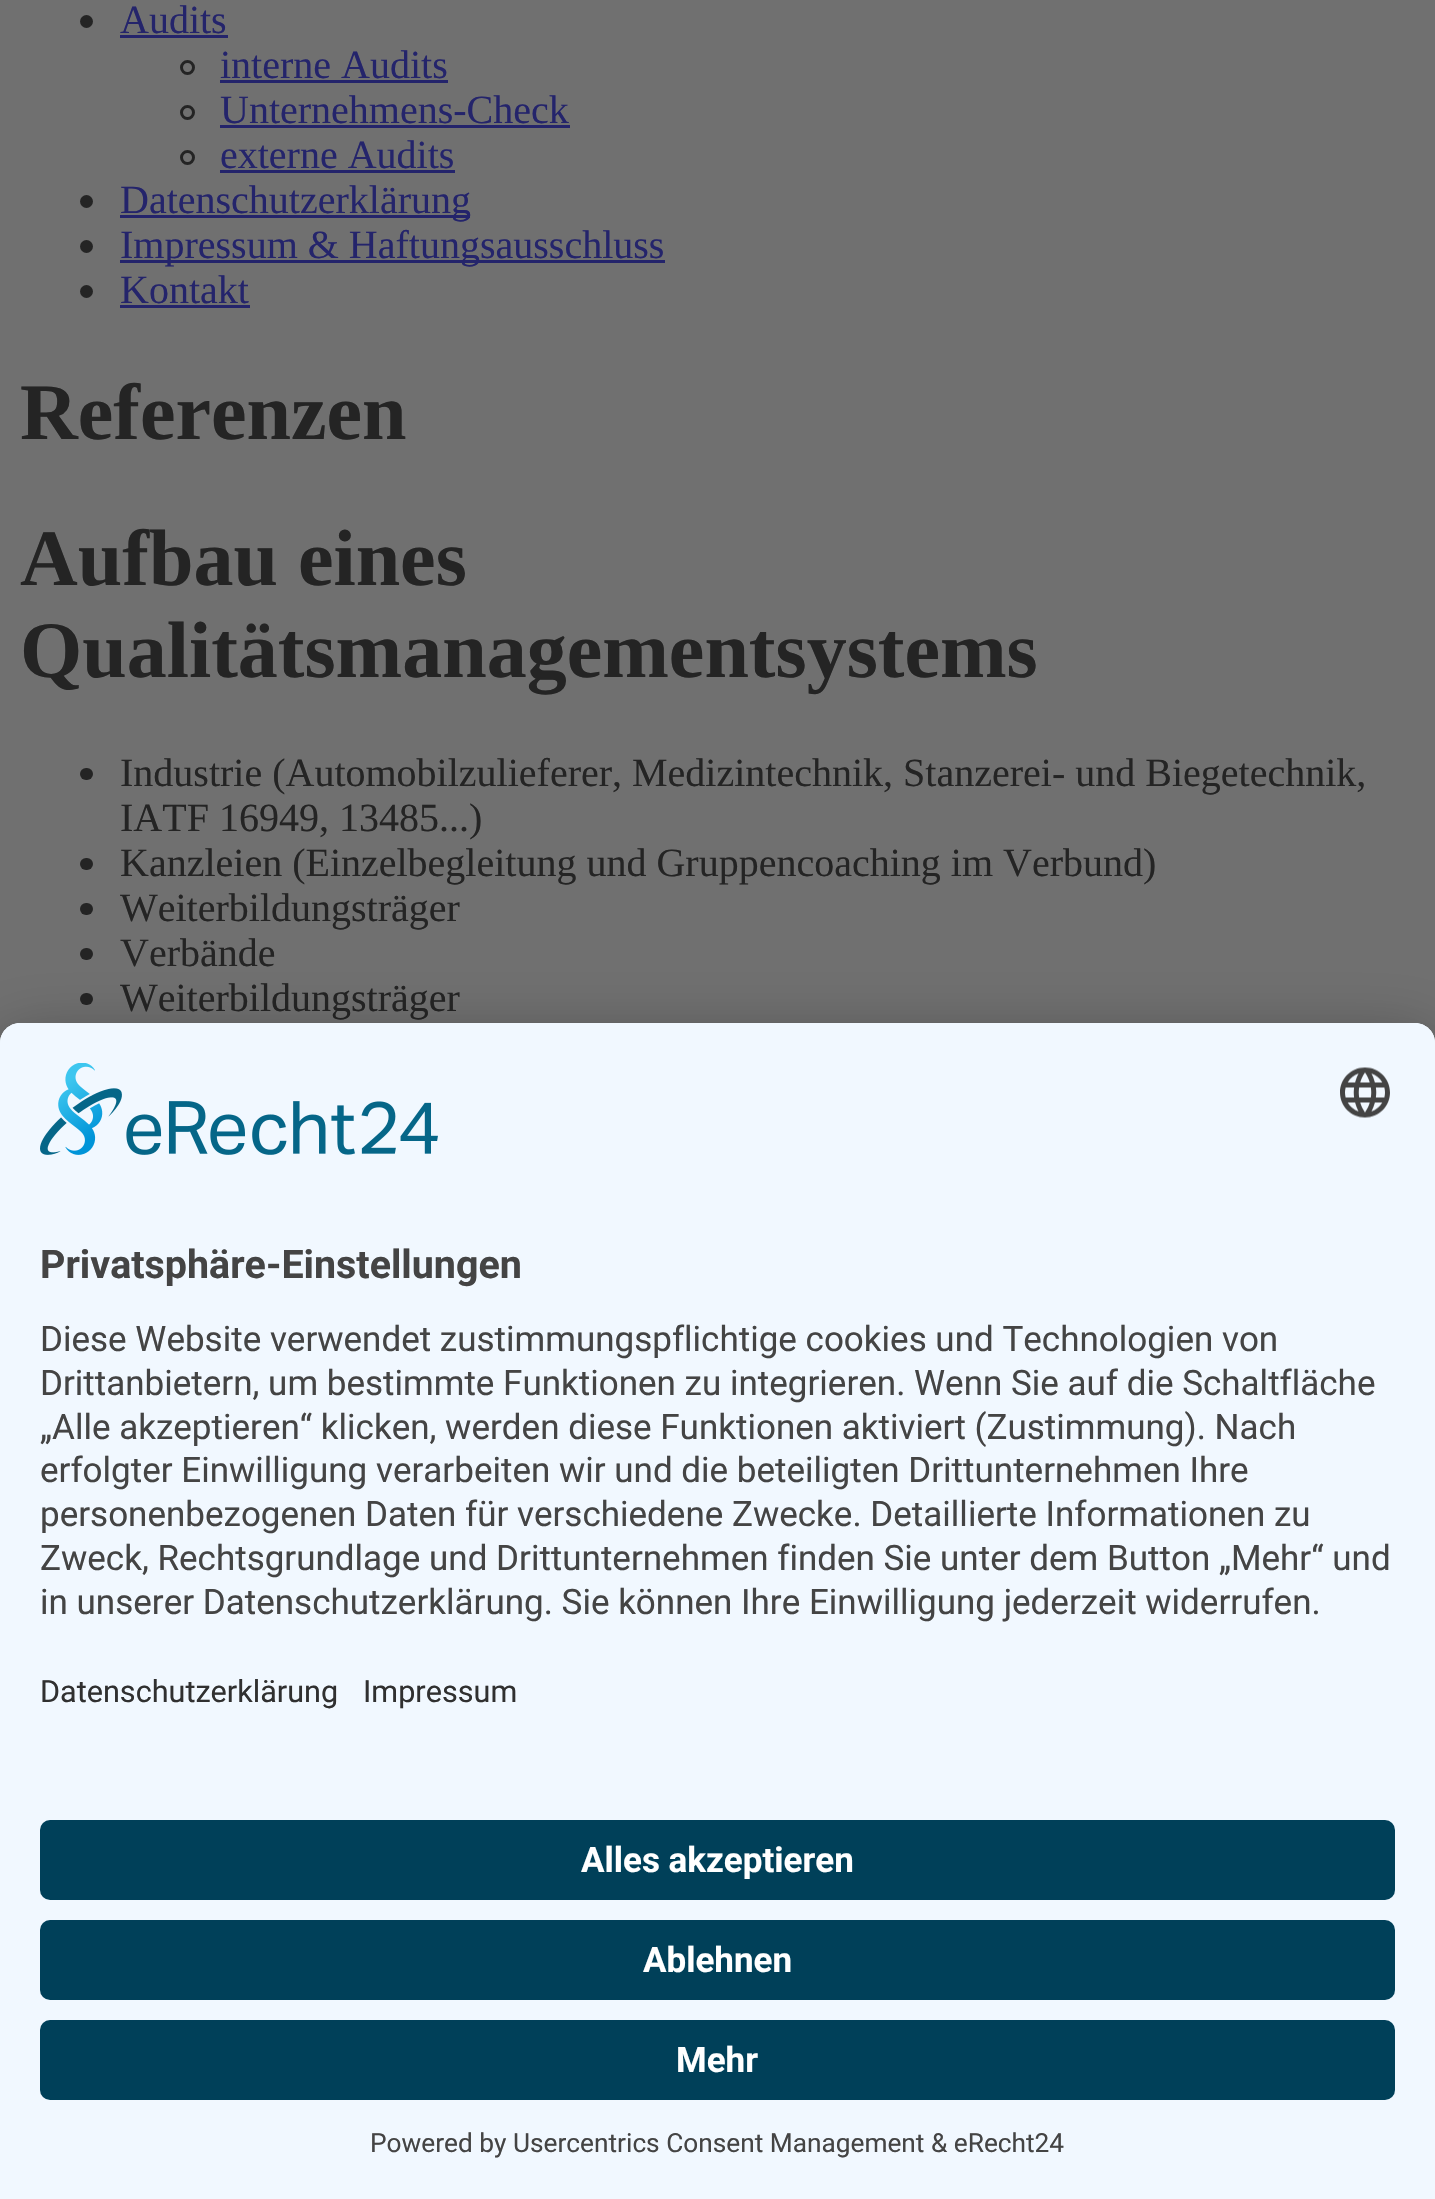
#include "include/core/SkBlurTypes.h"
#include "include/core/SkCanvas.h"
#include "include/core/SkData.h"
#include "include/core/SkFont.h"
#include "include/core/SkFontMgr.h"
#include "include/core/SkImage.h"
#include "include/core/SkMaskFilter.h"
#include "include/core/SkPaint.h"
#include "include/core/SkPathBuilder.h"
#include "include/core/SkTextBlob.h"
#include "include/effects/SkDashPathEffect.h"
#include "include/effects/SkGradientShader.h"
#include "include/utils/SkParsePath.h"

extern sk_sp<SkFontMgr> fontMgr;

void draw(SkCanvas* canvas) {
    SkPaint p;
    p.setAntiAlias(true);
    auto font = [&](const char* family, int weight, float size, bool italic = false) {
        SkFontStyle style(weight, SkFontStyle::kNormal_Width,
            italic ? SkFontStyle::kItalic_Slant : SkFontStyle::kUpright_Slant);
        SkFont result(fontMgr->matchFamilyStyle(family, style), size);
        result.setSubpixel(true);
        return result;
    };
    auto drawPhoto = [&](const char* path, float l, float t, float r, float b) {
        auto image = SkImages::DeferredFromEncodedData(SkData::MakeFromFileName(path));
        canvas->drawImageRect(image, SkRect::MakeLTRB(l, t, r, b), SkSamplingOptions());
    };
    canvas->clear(0xFF707070);
    p.setColor(0xFF242424);
    canvas->drawCircle(86.5f, 21.5f, 6.5f, p);
    auto font1 = font("Liberation Serif", 400, 40);
    p.setColor(0xFF24246B);
    canvas->drawString("Audits", 120, 33, font1, p);
    canvas->drawRect(SkRect::MakeLTRB(120, 35, 228, 38), p);
    p.setStyle(SkPaint::kStroke_Style);
    p.setStrokeWidth(3);
    p.setColor(0xFF242424);
    canvas->drawCircle(187.5f, 67.5f, 6, p);
    p.setStyle(SkPaint::kFill_Style);
    p.setColor(0xFF24246B);
    canvas->drawString("interne Audits", 220, 78, font1, p);
    canvas->drawRect(SkRect::MakeLTRB(220, 80, 448, 83), p);
    p.setStyle(SkPaint::kStroke_Style);
    p.setColor(0xFF242424);
    canvas->drawCircle(187.5f, 112.5f, 6, p);
    p.setStyle(SkPaint::kFill_Style);
    p.setColor(0xFF24246B);
    canvas->drawString("Unternehmens-Check", 220, 123, font1, p);
    canvas->drawRect(SkRect::MakeLTRB(220, 125, 570, 128), p);
    p.setStyle(SkPaint::kStroke_Style);
    p.setColor(0xFF242424);
    canvas->drawCircle(187.5f, 157.5f, 6, p);
    p.setStyle(SkPaint::kFill_Style);
    p.setColor(0xFF24246B);
    canvas->drawString("externe Audits", 220, 168, font1, p);
    canvas->drawRect(SkRect::MakeLTRB(220, 170, 455, 173), p);
    p.setColor(0xFF242424);
    canvas->drawCircle(86.5f, 201.5f, 6.5f, p);
    p.setColor(0xFF24246B);
    canvas->drawRect(SkRect::MakeLTRB(120, 215, 470, 218), p);
    canvas->drawString("Datenschutzerklärung", 120, 213, font1, p);
    p.setColor(0xFF242424);
    canvas->drawCircle(86.5f, 246.5f, 6.5f, p);
    p.setColor(0xFF24246B);
    canvas->drawRect(SkRect::MakeLTRB(120, 260, 665, 263), p);
    canvas->drawString("Impressum & Haftungsausschluss", 120, 258, font1, p);
    p.setColor(0xFF242424);
    canvas->drawCircle(86.5f, 291.5f, 6.5f, p);
    p.setColor(0xFF24246B);
    canvas->drawString("Kontakt", 120, 303, font1, p);
    canvas->drawRect(SkRect::MakeLTRB(120, 305, 250, 308), p);
    auto font2 = font("Liberation Serif", 700, 80);
    p.setColor(0xFF242424);
    {
        const struct { const char* s; float x, y; } items[] = {
            {"Referenzen", 20, 439},
            {"Aufbau eines", 20, 585},
            {"Qualitätsmanagementsystems", 20, 677},
        };
        for (auto [s, x, y] : items) {
            canvas->drawString(s, x, y, font2, p);
        }
    }
    canvas->drawRoundRect(SkRect::MakeLTRB(80, 768, 93, 780), 6, 6, p);
    canvas->drawString("Industrie (Automobilzulieferer, Medizintechnik, Stanzerei- und Biegetechnik,", 120, 786, font1, p);
    canvas->drawString("IATF 16949, 13485...)", 120, 831, font1, p);
    canvas->drawRoundRect(SkRect::MakeLTRB(80, 858, 93, 870), 6, 6, p);
    canvas->drawString("Kanzleien (Einzelbegleitung und Gruppencoaching im Verbund)", 120, 876, font1, p);
    canvas->drawRoundRect(SkRect::MakeLTRB(80, 903, 93, 915), 6, 6, p);
    canvas->drawString("Weiterbildungsträger", 120, 921, font1, p);
    canvas->drawRoundRect(SkRect::MakeLTRB(80, 948, 93, 960), 6, 6, p);
    canvas->drawString("Verbände", 120, 966, font1, p);
    canvas->drawRoundRect(SkRect::MakeLTRB(80, 993, 93, 1005), 6, 6, p);
    canvas->drawString("Weiterbildungsträger", 120, 1011, font1, p);
    p.setColor(0x4D000000);
    p.setMaskFilter(SkMaskFilter::MakeBlur(kNormal_SkBlurStyle, 35));
    canvas->drawRoundRect(SkRect::MakeLTRB(0, 1073, 1435, 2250), 20, 20, p);
    p.setMaskFilter(nullptr);
    p.setColor(0x38000000);
    p.setMaskFilter(SkMaskFilter::MakeBlur(kNormal_SkBlurStyle, 32.5f));
    canvas->drawRoundRect(SkRect::MakeLTRB(0, 1035, 1435, 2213), 20, 20, p);
    p.setMaskFilter(nullptr);
    p.setColor(0xFFF1F8FF);
    canvas->drawPath(SkPathBuilder().moveTo(20, 1023).lineTo(1415, 1023).cubicTo(1426, 1023, 1435, 1032, 1435, 1043).lineTo(1435, 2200).lineTo(0, 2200).lineTo(0, 1043).cubicTo(0, 1032, 9, 1023, 20, 1023).close().detach(), p);
    canvas->drawPath(SkPathBuilder().moveTo(20, 1023).lineTo(1415, 1023).cubicTo(1426, 1023, 1435, 1032, 1435, 1043).lineTo(1435, 1790).lineTo(0, 1790).lineTo(0, 1043).cubicTo(0, 1032, 9, 1023, 20, 1023).close().detach(), p);
    drawPhoto("media/1.png", 40, 1063, 438, 1155);
    drawPhoto("media/2.png", 1340, 1067, 1390, 1118);
    auto font3 = font("Roboto", 700, 39.4f);
    p.setColor(0xFF444444);
    canvas->drawString("Privatsphäre-Einstellungen", 40, 1278, font3, p);
    auto font4 = font("Roboto", 400, 35);
    {
        const struct { const char* s; float x, y; } items[] = {
            {"Diese Website verwendet zustimmungspflichtige cookies und Technologien von", 40, 1351},
            {"Drittanbietern, um bestimmte Funktionen zu integrieren. Wenn Sie auf die Schaltfläche", 40, 1395},
            {"„Alle akzeptieren“ klicken, werden diese Funktionen aktiviert (Zustimmung). Nach", 40, 1439},
            {"erfolgter Einwilligung verarbeiten wir und die beteiligten Drittunternehmen Ihre", 40, 1482},
            {"personenbezogenen Daten für verschiedene Zwecke. Detaillierte Informationen zu", 40, 1526},
            {"Zweck, Rechtsgrundlage und Drittunternehmen finden Sie unter dem Button „Mehr“ und", 40, 1570},
            {"in unserer Datenschutzerklärung. Sie können Ihre Einwilligung jederzeit widerrufen.", 40, 1614},
        };
        for (auto [s, x, y] : items) {
            canvas->drawString(s, x, y, font4, p);
        }
    }
    auto font5 = font("Roboto", 400, 30.6f);
    p.setColor(0xFF303030);
    canvas->drawString("Datenschutzerklärung", 40, 1702, font5, p);
    canvas->drawString("Impressum", 363, 1702, font5, p);
    p.setColor(0xFF004059);
    canvas->drawRoundRect(SkRect::MakeLTRB(40, 1820, 1395, 1900), 10, 10, p);
    auto font6 = font("Roboto", 700, 35);
    p.setColor(0xFFFFFFFF);
    canvas->drawString("Alles akzeptieren", 581, 1872, font6, p);
    p.setColor(0xFF004059);
    canvas->drawRoundRect(SkRect::MakeLTRB(40, 1920, 1395, 2000), 10, 10, p);
    p.setColor(0xFFFFFFFF);
    canvas->drawString("Ablehnen", 643, 1972, font6, p);
    p.setColor(0xFF004059);
    canvas->drawRoundRect(SkRect::MakeLTRB(40, 2020, 1395, 2100), 10, 10, p);
    p.setColor(0xFFFFFFFF);
    canvas->drawString("Mehr", 676, 2072, font6, p);
    auto font7 = font("Roboto", 400, 26.25f);
    p.setColor(0xFF444444);
    canvas->drawString("Powered by Usercentrics Consent Management & eRecht24", 370, 2152, font7, p);
}
